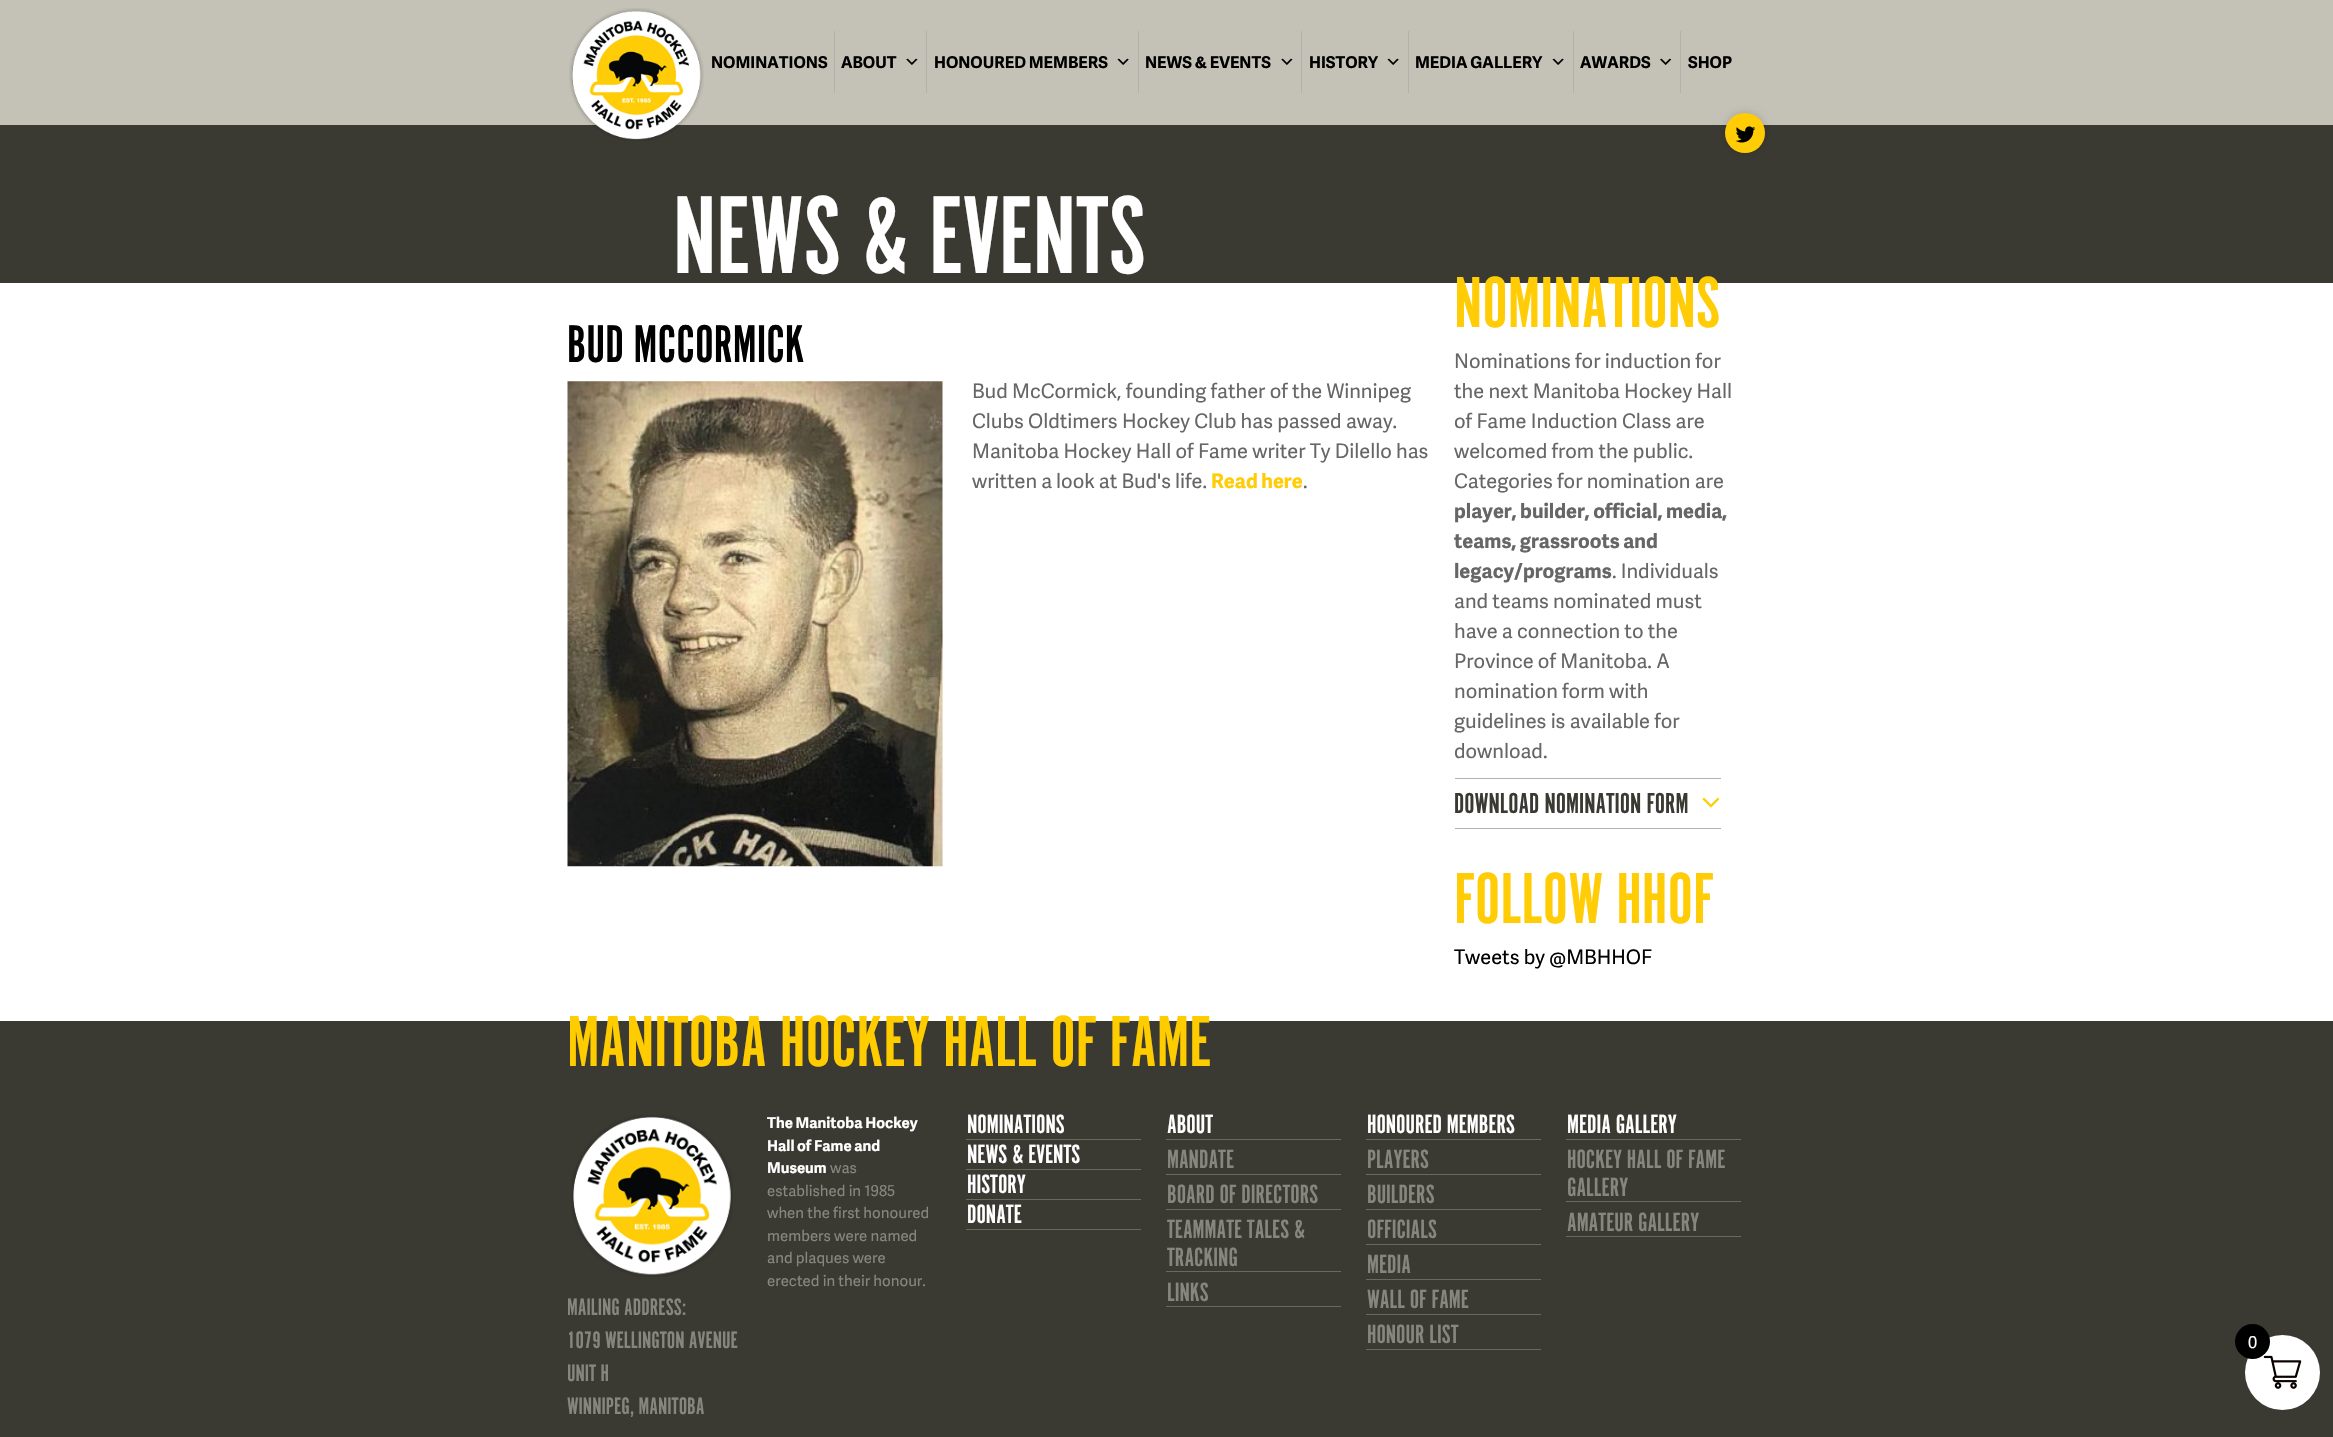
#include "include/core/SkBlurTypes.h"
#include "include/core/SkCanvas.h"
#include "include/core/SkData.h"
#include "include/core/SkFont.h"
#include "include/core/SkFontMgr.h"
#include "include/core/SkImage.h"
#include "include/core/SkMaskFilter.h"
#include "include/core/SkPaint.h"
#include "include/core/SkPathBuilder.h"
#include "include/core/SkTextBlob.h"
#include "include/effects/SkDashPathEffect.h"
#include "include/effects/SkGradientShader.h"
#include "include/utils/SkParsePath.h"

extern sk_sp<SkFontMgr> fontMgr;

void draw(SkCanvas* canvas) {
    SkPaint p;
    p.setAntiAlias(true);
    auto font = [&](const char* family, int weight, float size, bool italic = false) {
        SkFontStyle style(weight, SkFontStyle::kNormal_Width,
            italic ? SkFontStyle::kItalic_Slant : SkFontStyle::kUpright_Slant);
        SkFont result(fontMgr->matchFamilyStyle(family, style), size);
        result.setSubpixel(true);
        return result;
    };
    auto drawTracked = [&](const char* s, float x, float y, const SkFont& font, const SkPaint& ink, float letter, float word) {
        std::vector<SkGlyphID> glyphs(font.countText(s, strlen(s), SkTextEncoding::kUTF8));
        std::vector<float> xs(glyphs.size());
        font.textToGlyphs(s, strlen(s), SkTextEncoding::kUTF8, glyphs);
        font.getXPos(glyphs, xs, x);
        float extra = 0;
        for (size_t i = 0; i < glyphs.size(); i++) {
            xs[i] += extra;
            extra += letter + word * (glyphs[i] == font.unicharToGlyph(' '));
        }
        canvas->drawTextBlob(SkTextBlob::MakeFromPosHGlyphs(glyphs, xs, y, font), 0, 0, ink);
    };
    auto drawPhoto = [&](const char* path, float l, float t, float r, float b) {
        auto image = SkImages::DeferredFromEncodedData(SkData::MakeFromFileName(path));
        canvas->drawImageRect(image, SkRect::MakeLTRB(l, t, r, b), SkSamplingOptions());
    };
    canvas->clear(0xFFFFFFFF);
    p.setColor(0xFFC4C2B6);
    canvas->drawRect(SkRect::MakeLTRB(0, 0, 2333, 125), p);
    p.setColor(0xFF3A3932);
    canvas->drawRect(SkRect::MakeLTRB(0, 125, 2333, 283), p);
    drawPhoto("media/1.png", 569, 8, 704, 141);
    p.setColor(0xFFB2B1AC);
    canvas->drawRect(SkRect::MakeLTRB(834, 31, 835, 93), p);
    auto font1 = font("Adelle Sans", 700, 16.25f);
    p.setColor(0xFF000000);
    canvas->drawString("NOMINATIONS", 711, 68, font1, p);
    p.setColor(0xFFB2B1AC);
    canvas->drawRect(SkRect::MakeLTRB(926, 31, 927, 93), p);
    p.setColor(0xFF000000);
    canvas->drawString("ABOUT", 841, 68, font1, p);
    drawPhoto("media/2.png", 906, 58, 918, 65);
    p.setColor(0xFFB2B1AC);
    canvas->drawRect(SkRect::MakeLTRB(1138, 31, 1139, 93), p);
    p.setColor(0xFF000000);
    canvas->drawString("HONOURED MEMBERS", 934, 68, font1, p);
    drawPhoto("media/3.png", 1117, 58, 1129, 65);
    p.setColor(0xFFB2B1AC);
    canvas->drawRect(SkRect::MakeLTRB(1301, 31, 1302, 93), p);
    p.setColor(0xFF000000);
    canvas->drawString("NEWS & EVENTS", 1145, 68, font1, p);
    drawPhoto("media/2.png", 1281, 58, 1293, 65);
    p.setColor(0xFFB2B1AC);
    canvas->drawRect(SkRect::MakeLTRB(1408, 31, 1409, 93), p);
    p.setColor(0xFF000000);
    canvas->drawString("HISTORY", 1309, 68, font1, p);
    drawPhoto("media/3.png", 1387, 58, 1399, 65);
    p.setColor(0xFFB2B1AC);
    canvas->drawRect(SkRect::MakeLTRB(1573, 31, 1574, 93), p);
    p.setColor(0xFF000000);
    canvas->drawString("MEDIA GALLERY", 1415, 68, font1, p);
    drawPhoto("media/3.png", 1552, 58, 1564, 65);
    p.setColor(0xFFB2B1AC);
    canvas->drawRect(SkRect::MakeLTRB(1680, 31, 1681, 93), p);
    p.setColor(0xFF000000);
    canvas->drawString("AWARDS", 1580, 68, font1, p);
    drawPhoto("media/4.png", 1660, 58, 1672, 65);
    canvas->drawString("SHOP", 1688, 68, font1, p);
    p.setColor(0x1A000000);
    p.setMaskFilter(SkMaskFilter::MakeBlur(kNormal_SkBlurStyle, 3));
    canvas->drawRoundRect(SkRect::MakeLTRB(1724, 111, 1766, 154), 21, 21, p);
    p.setMaskFilter(nullptr);
    p.setColor(0xFFFFCC06);
    canvas->drawCircle(1745, 133, 20, p);
    drawPhoto("media/5.png", 1735, 126, 1756, 143);
    auto font2 = font("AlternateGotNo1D", 400, 115);
    p.setColor(0xFFFFFFFF);
    canvas->drawString("NEWS & EVENTS", 673, 273, font2, p);
    auto font3 = font("AlternateGotNo1D", 400, 55);
    p.setColor(0xFF000000);
    canvas->drawString("BUD MCCORMICK", 567, 362, font3, p);
    drawPhoto("media/6.png", 567, 381, 943, 867);
    auto font4 = font("Adelle Sans", 400, 20);
    p.setColor(0xFF666666);
    {
        const struct { const char* s; float x, y; } items[] = {
            {"Bud McCormick, founding father of the Winnipeg", 972, 398},
            {"Clubs Oldtimers Hockey Club has passed away.", 972, 428},
            {"Manitoba Hockey Hall of Fame writer Ty Dilello has", 972, 458},
        };
        for (auto [s, x, y] : items) {
            canvas->drawString(s, x, y, font4, p);
        }
    }
    drawTracked("written a look at Bud's life.", 972, 488, font4, p, 0, -0.25f);
    auto font5 = font("Adelle Sans", 700, 20);
    p.setColor(0xFFFFCC06);
    canvas->drawString("Read here", 1211, 488, font5, p);
    p.setColor(0xFF666666);
    canvas->drawString(".", 1303, 488, font4, p);
    auto font6 = font("AlternateGotNo1D", 400, 75);
    p.setColor(0xFFFFCC06);
    canvas->drawString("NOMINATIONS", 1454, 327, font6, p);
    p.setColor(0xFF666666);
    {
        const struct { const char* s; float x, y; } items[] = {
            {"Nominations for induction for", 1454, 368},
            {"the next Manitoba Hockey Hall", 1454, 398},
            {"of Fame Induction Class are", 1454, 428},
            {"welcomed from the public.", 1454, 458},
            {"Categories for nomination are", 1454, 488},
        };
        for (auto [s, x, y] : items) {
            canvas->drawString(s, x, y, font4, p);
        }
    }
    {
        const struct { const char* s; float x, y; } items[] = {
            {"player, builder, official, media,", 1454, 518},
            {"teams, grassroots and", 1454, 548},
            {"legacy/programs", 1454, 578},
        };
        for (auto [s, x, y] : items) {
            canvas->drawString(s, x, y, font5, p);
        }
    }
    {
        const struct { const char* s; float x, y; } items[] = {
            {". Individuals", 1612, 578},
            {"and teams nominated must", 1454, 608},
            {"have a connection to the", 1454, 638},
            {"Province of Manitoba. A", 1454, 668},
            {"nomination form with", 1454, 698},
            {"guidelines is available for", 1454, 728},
            {"download.", 1454, 758},
        };
        for (auto [s, x, y] : items) {
            canvas->drawString(s, x, y, font4, p);
        }
    }
    p.setColor(0xFFB2B1AB);
    canvas->drawRect(SkRect::MakeLTRB(1455, 778, 1721, 779), p);
    canvas->drawRect(SkRect::MakeLTRB(1455, 828, 1721, 829), p);
    auto font7 = font("AlternateGotNo1D", 400, 30);
    p.setColor(0xFF3A3932);
    canvas->drawString("DOWNLOAD NOMINATION FORM", 1454, 813, font7, p);
    drawPhoto("media/7.png", 1702, 797, 1720, 808);
    p.setColor(0xFFFFCC06);
    canvas->drawString("FOLLOW HHOF", 1454, 923, font6, p);
    p.setColor(0xFF000000);
    canvas->drawString("Tweets by @MBHHOF", 1454, 964, font4, p);
    p.setColor(0xFF3A3932);
    canvas->drawRect(SkRect::MakeLTRB(0, 1021, 2333, 1437), p);
    p.setColor(0xFFFFCC00);
    canvas->drawString("MANITOBA HOCKEY HALL OF FAME", 567, 1066, font6, p);
    auto font8 = font("Adelle Sans", 700, 15);
    p.setColor(0xFFFFFFFF);
    {
        const struct { const char* s; float x, y; } items[] = {
            {"The Manitoba Hockey", 767, 1128},
            {"Hall of Fame and", 767, 1151},
            {"Museum", 767, 1173},
        };
        for (auto [s, x, y] : items) {
            canvas->drawString(s, x, y, font8, p);
        }
    }
    auto font9 = font("Adelle Sans", 400, 15);
    p.setColor(0xFF87867E);
    {
        const struct { const char* s; float x, y; } items[] = {
            {"was", 830, 1173},
            {"established in 1985", 767, 1196},
            {"when the first honoured", 767, 1218},
            {"members were named", 767, 1241},
            {"and plaques were", 767, 1263},
            {"erected in their honour.", 767, 1286},
        };
        for (auto [s, x, y] : items) {
            canvas->drawString(s, x, y, font9, p);
        }
    }
    p.setColor(0xFF6B685C);
    canvas->drawRect(SkRect::MakeLTRB(966, 1139, 1141, 1140), p);
    auto font10 = font("AlternateGotNo1D", 400, 27.5f);
    p.setColor(0xFFFFFFFF);
    canvas->drawString("NOMINATIONS", 967, 1133, font10, p);
    p.setColor(0xFF6B685C);
    canvas->drawRect(SkRect::MakeLTRB(966, 1169, 1141, 1170), p);
    p.setColor(0xFFFFFFFF);
    canvas->drawString("NEWS & EVENTS", 967, 1163, font10, p);
    p.setColor(0xFF6B685C);
    canvas->drawRect(SkRect::MakeLTRB(966, 1199, 1141, 1200), p);
    p.setColor(0xFFFFFFFF);
    canvas->drawString("HISTORY", 967, 1193, font10, p);
    p.setColor(0xFF6B685C);
    canvas->drawRect(SkRect::MakeLTRB(966, 1229, 1141, 1230), p);
    p.setColor(0xFFFFFFFF);
    canvas->drawString("DONATE", 967, 1223, font10, p);
    p.setColor(0xFF6B685C);
    canvas->drawRect(SkRect::MakeLTRB(1166, 1139, 1341, 1140), p);
    p.setColor(0xFFFFFFFF);
    canvas->drawString("ABOUT", 1167, 1133, font10, p);
    p.setColor(0xFF6B685C);
    canvas->drawRect(SkRect::MakeLTRB(1166, 1174, 1341, 1175), p);
    p.setColor(0xFF87867E);
    canvas->drawString("MANDATE", 1167, 1168, font10, p);
    p.setColor(0xFF6B685C);
    canvas->drawRect(SkRect::MakeLTRB(1166, 1209, 1341, 1210), p);
    p.setColor(0xFF87867E);
    canvas->drawString("BOARD OF DIRECTORS", 1167, 1203, font10, p);
    p.setColor(0xFF6B685C);
    canvas->drawRect(SkRect::MakeLTRB(1166, 1271, 1341, 1272), p);
    p.setColor(0xFF87867E);
    canvas->drawString("TEAMMATE TALES &", 1167, 1238, font10, p);
    canvas->drawString("TRACKING", 1167, 1266, font10, p);
    p.setColor(0xFF6B685C);
    canvas->drawRect(SkRect::MakeLTRB(1166, 1306, 1341, 1307), p);
    p.setColor(0xFF87867E);
    canvas->drawString("LINKS", 1167, 1301, font10, p);
    p.setColor(0xFF6B685C);
    canvas->drawRect(SkRect::MakeLTRB(1366, 1139, 1541, 1140), p);
    p.setColor(0xFFFFFFFF);
    canvas->drawString("HONOURED MEMBERS", 1367, 1133, font10, p);
    p.setColor(0xFF6B685C);
    canvas->drawRect(SkRect::MakeLTRB(1366, 1174, 1541, 1175), p);
    p.setColor(0xFF87867E);
    canvas->drawString("PLAYERS", 1367, 1168, font10, p);
    p.setColor(0xFF6B685C);
    canvas->drawRect(SkRect::MakeLTRB(1366, 1209, 1541, 1210), p);
    p.setColor(0xFF87867E);
    canvas->drawString("BUILDERS", 1367, 1203, font10, p);
    p.setColor(0xFF6B685C);
    canvas->drawRect(SkRect::MakeLTRB(1366, 1244, 1541, 1245), p);
    p.setColor(0xFF87867E);
    canvas->drawString("OFFICIALS", 1367, 1238, font10, p);
    p.setColor(0xFF6B685C);
    canvas->drawRect(SkRect::MakeLTRB(1366, 1279, 1541, 1280), p);
    p.setColor(0xFF87867E);
    canvas->drawString("MEDIA", 1367, 1273, font10, p);
    p.setColor(0xFF6B685C);
    canvas->drawRect(SkRect::MakeLTRB(1366, 1314, 1541, 1315), p);
    p.setColor(0xFF87867E);
    canvas->drawString("WALL OF FAME", 1367, 1308, font10, p);
    p.setColor(0xFF6B685C);
    canvas->drawRect(SkRect::MakeLTRB(1366, 1349, 1541, 1350), p);
    p.setColor(0xFF87867E);
    canvas->drawString("HONOUR LIST", 1367, 1343, font10, p);
    p.setColor(0xFF6B685C);
    canvas->drawRect(SkRect::MakeLTRB(1566, 1139, 1741, 1140), p);
    p.setColor(0xFFFFFFFF);
    canvas->drawString("MEDIA GALLERY", 1567, 1133, font10, p);
    p.setColor(0xFF6B685C);
    canvas->drawRect(SkRect::MakeLTRB(1566, 1201, 1741, 1202), p);
    p.setColor(0xFF87867E);
    canvas->drawString("HOCKEY HALL OF FAME", 1567, 1168, font10, p);
    canvas->drawString("GALLERY", 1567, 1196, font10, p);
    p.setColor(0xFF6B685C);
    canvas->drawRect(SkRect::MakeLTRB(1566, 1236, 1741, 1237), p);
    p.setColor(0xFF87867E);
    canvas->drawString("AMATEUR GALLERY", 1567, 1231, font10, p);
    drawPhoto("media/8.png", 571, 1115, 733, 1277);
    auto font11 = font("AlternateGotNo1D", 400, 24.75f);
    {
        const struct { const char* s; float x, y; } items[] = {
            {"MAILING ADDRESS:", 567, 1315},
            {"1079 WELLINGTON AVENUE", 567, 1348},
            {"UNIT H", 567, 1381},
            {"WINNIPEG, MANITOBA", 567, 1414},
        };
        for (auto [s, x, y] : items) {
            canvas->drawString(s, x, y, font11, p);
        }
    }
    p.setColor(0xFFFFFFFF);
    canvas->drawCircle(2282.5f, 1372.5f, 37.5f, p);
    drawPhoto("media/9.png", 2263, 1355, 2302, 1389);
    p.setColor(0xFF000000);
    canvas->drawCircle(2252.5f, 1341.5f, 17.5f, p);
    auto font12 = font("Adelle Sans", 400, 16.25f);
    p.setColor(0xFFFFFFFF);
    canvas->drawString("0", 2248, 1348, font12, p);
}
